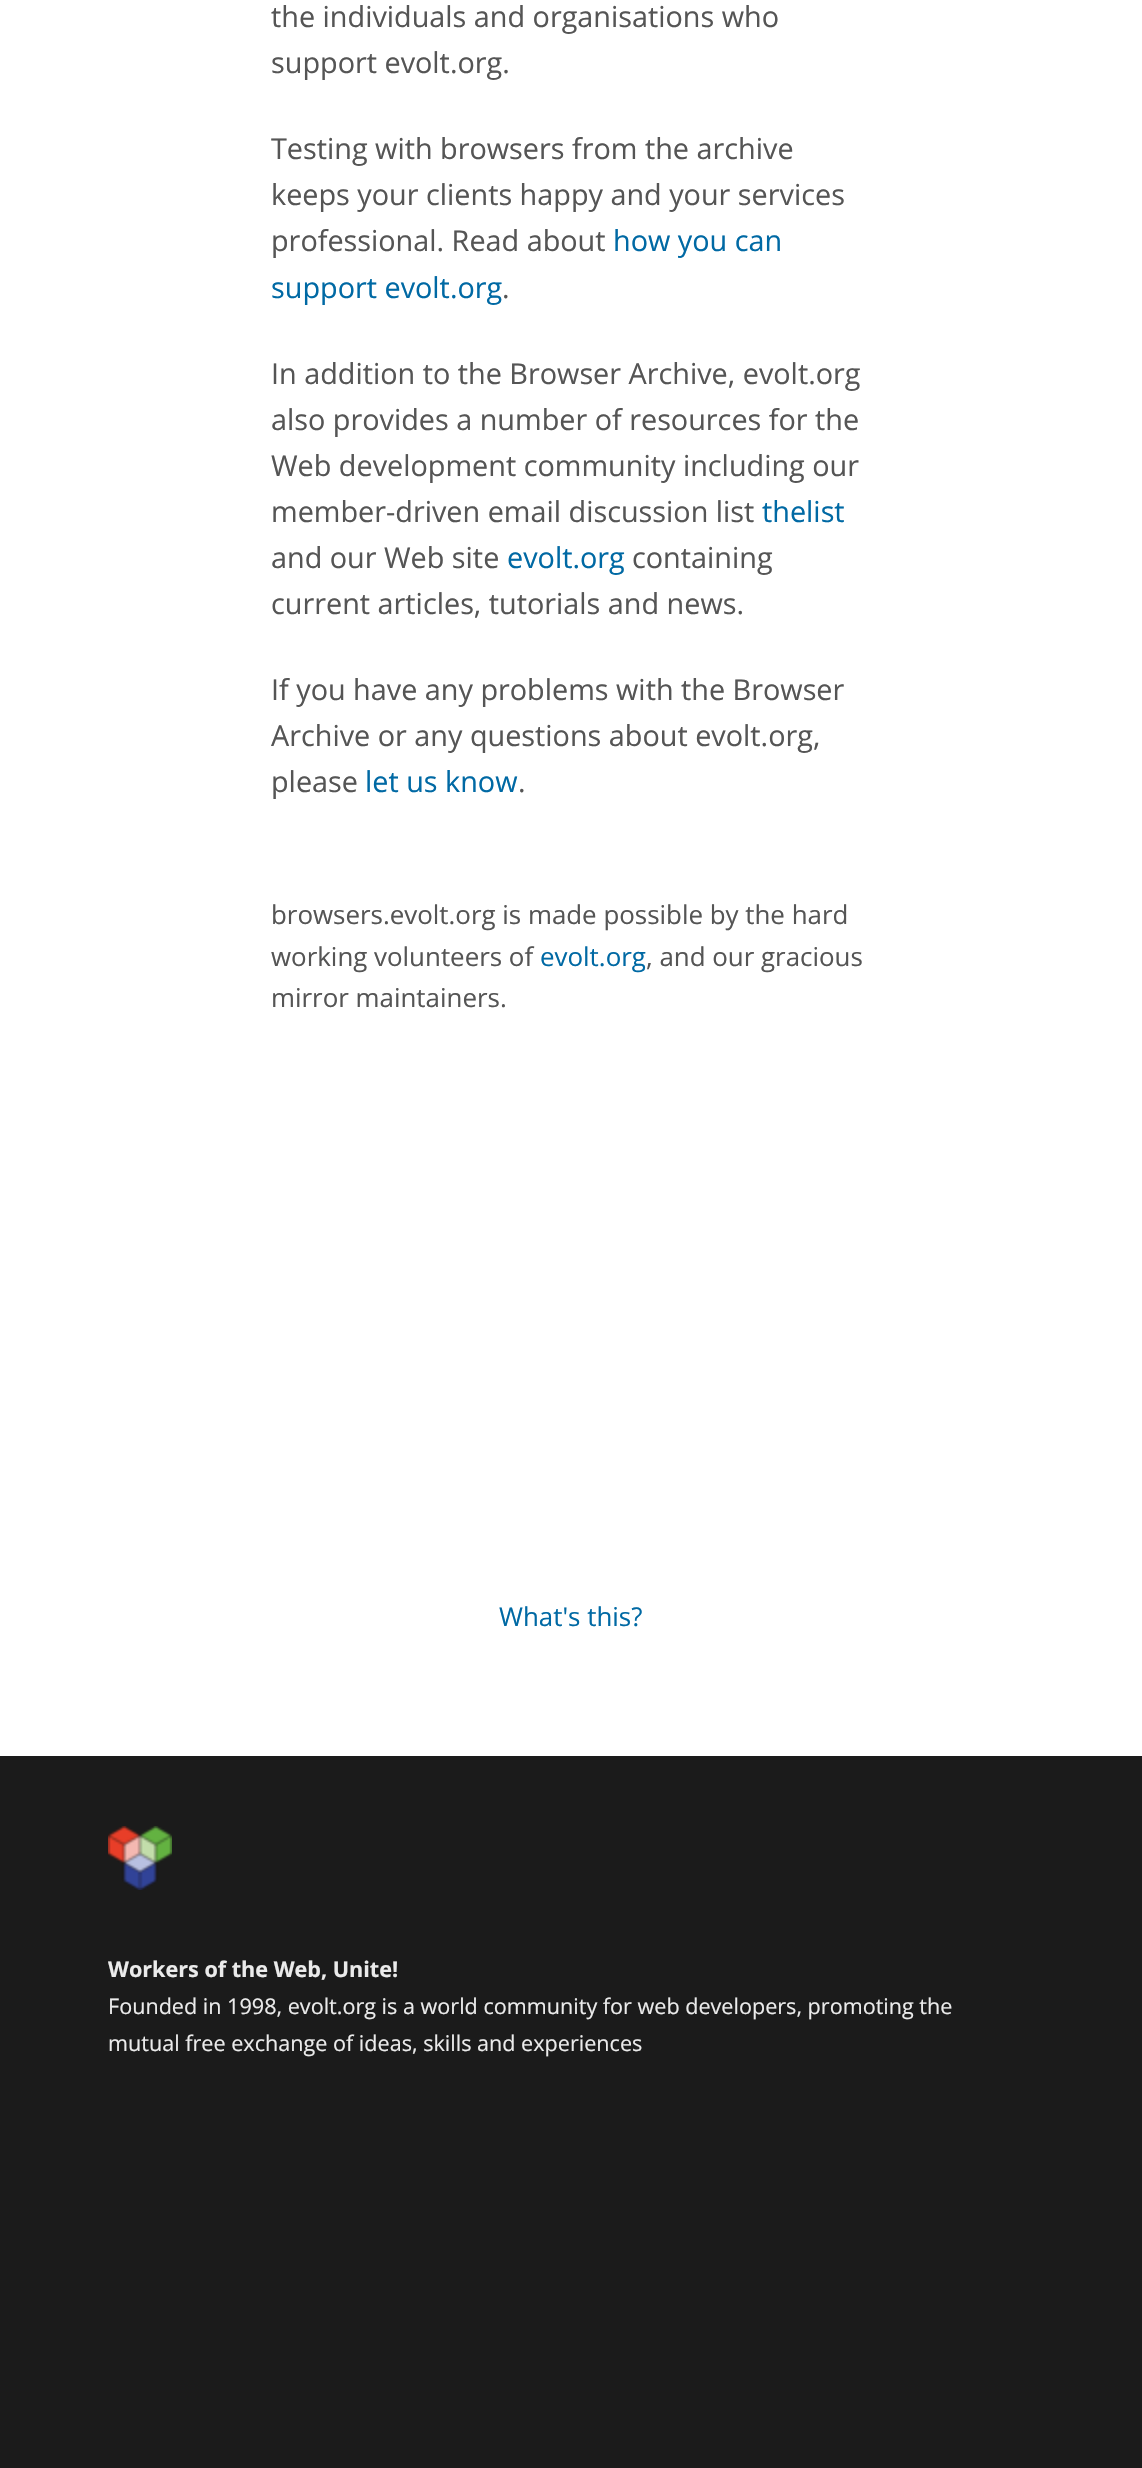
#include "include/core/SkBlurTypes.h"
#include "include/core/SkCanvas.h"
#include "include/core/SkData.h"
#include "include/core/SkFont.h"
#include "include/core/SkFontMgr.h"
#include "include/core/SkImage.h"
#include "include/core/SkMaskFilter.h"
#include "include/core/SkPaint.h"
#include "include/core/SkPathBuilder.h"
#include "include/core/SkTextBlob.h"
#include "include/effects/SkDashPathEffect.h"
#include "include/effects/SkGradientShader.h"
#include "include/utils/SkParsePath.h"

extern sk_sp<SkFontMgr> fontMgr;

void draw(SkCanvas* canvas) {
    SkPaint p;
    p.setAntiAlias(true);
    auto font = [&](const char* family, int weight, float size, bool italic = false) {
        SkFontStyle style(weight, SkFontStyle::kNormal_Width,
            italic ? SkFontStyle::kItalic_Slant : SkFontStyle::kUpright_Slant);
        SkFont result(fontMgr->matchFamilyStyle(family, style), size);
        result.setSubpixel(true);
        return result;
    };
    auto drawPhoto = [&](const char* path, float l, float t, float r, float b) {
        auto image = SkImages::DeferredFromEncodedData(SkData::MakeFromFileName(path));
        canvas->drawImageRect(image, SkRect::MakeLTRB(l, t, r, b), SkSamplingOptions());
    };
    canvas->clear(0xFFFFFFFF);
    auto font1 = font("Open Sans", 400, 28.8f);
    p.setColor(0xFF555555);
    {
        const struct { const char* s; float x, y; } items[] = {
            {"the individuals and organisations who", 271, 27},
            {"support evolt.org.", 271, 73},
            {"Testing with browsers from the archive", 271, 159},
            {"keeps your clients happy and your services", 271, 205},
            {"professional. Read about", 271, 251},
        };
        for (auto [s, x, y] : items) {
            canvas->drawString(s, x, y, font1, p);
        }
    }
    p.setColor(0xFF0069A4);
    canvas->drawString("how you can", 613, 251, font1, p);
    canvas->drawString("support evolt.org", 271, 298, font1, p);
    p.setColor(0xFF555555);
    {
        const struct { const char* s; float x, y; } items[] = {
            {".", 502, 298},
            {"In addition to the Browser Archive, evolt.org", 271, 384},
            {"also provides a number of resources for the", 271, 430},
            {"Web development community including our", 271, 476},
            {"member-driven email discussion list", 271, 522},
        };
        for (auto [s, x, y] : items) {
            canvas->drawString(s, x, y, font1, p);
        }
    }
    p.setColor(0xFF0069A4);
    canvas->drawString("thelist", 762, 522, font1, p);
    p.setColor(0xFF555555);
    canvas->drawString("and our Web site", 271, 568, font1, p);
    p.setColor(0xFF0069A4);
    canvas->drawString("evolt.org", 507, 568, font1, p);
    p.setColor(0xFF555555);
    {
        const struct { const char* s; float x, y; } items[] = {
            {"containing", 632, 568},
            {"current articles, tutorials and news.", 271, 614},
            {"If you have any problems with the Browser", 271, 700},
            {"Archive or any questions about evolt.org,", 271, 746},
            {"please", 271, 792},
        };
        for (auto [s, x, y] : items) {
            canvas->drawString(s, x, y, font1, p);
        }
    }
    p.setColor(0xFF0069A4);
    canvas->drawString("let us know", 365, 792, font1, p);
    p.setColor(0xFF555555);
    canvas->drawString(".", 518, 792, font1, p);
    auto font2 = font("Open Sans", 400, 25.9f);
    canvas->drawString("browsers.evolt.org is made possible by the hard", 271, 924, font2, p);
    canvas->drawString("working volunteers of", 271, 966, font2, p);
    p.setColor(0xFF0069A4);
    canvas->drawString("evolt.org", 540, 966, font2, p);
    p.setColor(0xFF555555);
    canvas->drawString(", and our gracious", 646, 966, font2, p);
    canvas->drawString("mirror maintainers.", 271, 1007, font2, p);
    p.setColor(0xFF0069A4);
    canvas->drawString("What's this?", 499, 1626, font2, p);
    p.setColor(0xFF1B1B1B);
    canvas->drawRect(SkRect::MakeLTRB(0, 1756, 1142, 2468), p);
    drawPhoto("media/1.png", 108, 1826, 172, 1890);
    auto font3 = font("Open Sans", 700, 21.6f);
    p.setColor(0xFFEBEBEB);
    canvas->drawString("Workers of the Web, Unite!", 108, 1977, font3, p);
    auto font4 = font("Open Sans", 400, 21.6f);
    canvas->drawString("Founded in 1998, evolt.org is a world community for web developers, promoting the", 108, 2014, font4, p);
    canvas->drawString("mutual free exchange of ideas, skills and experiences", 108, 2051, font4, p);
}
